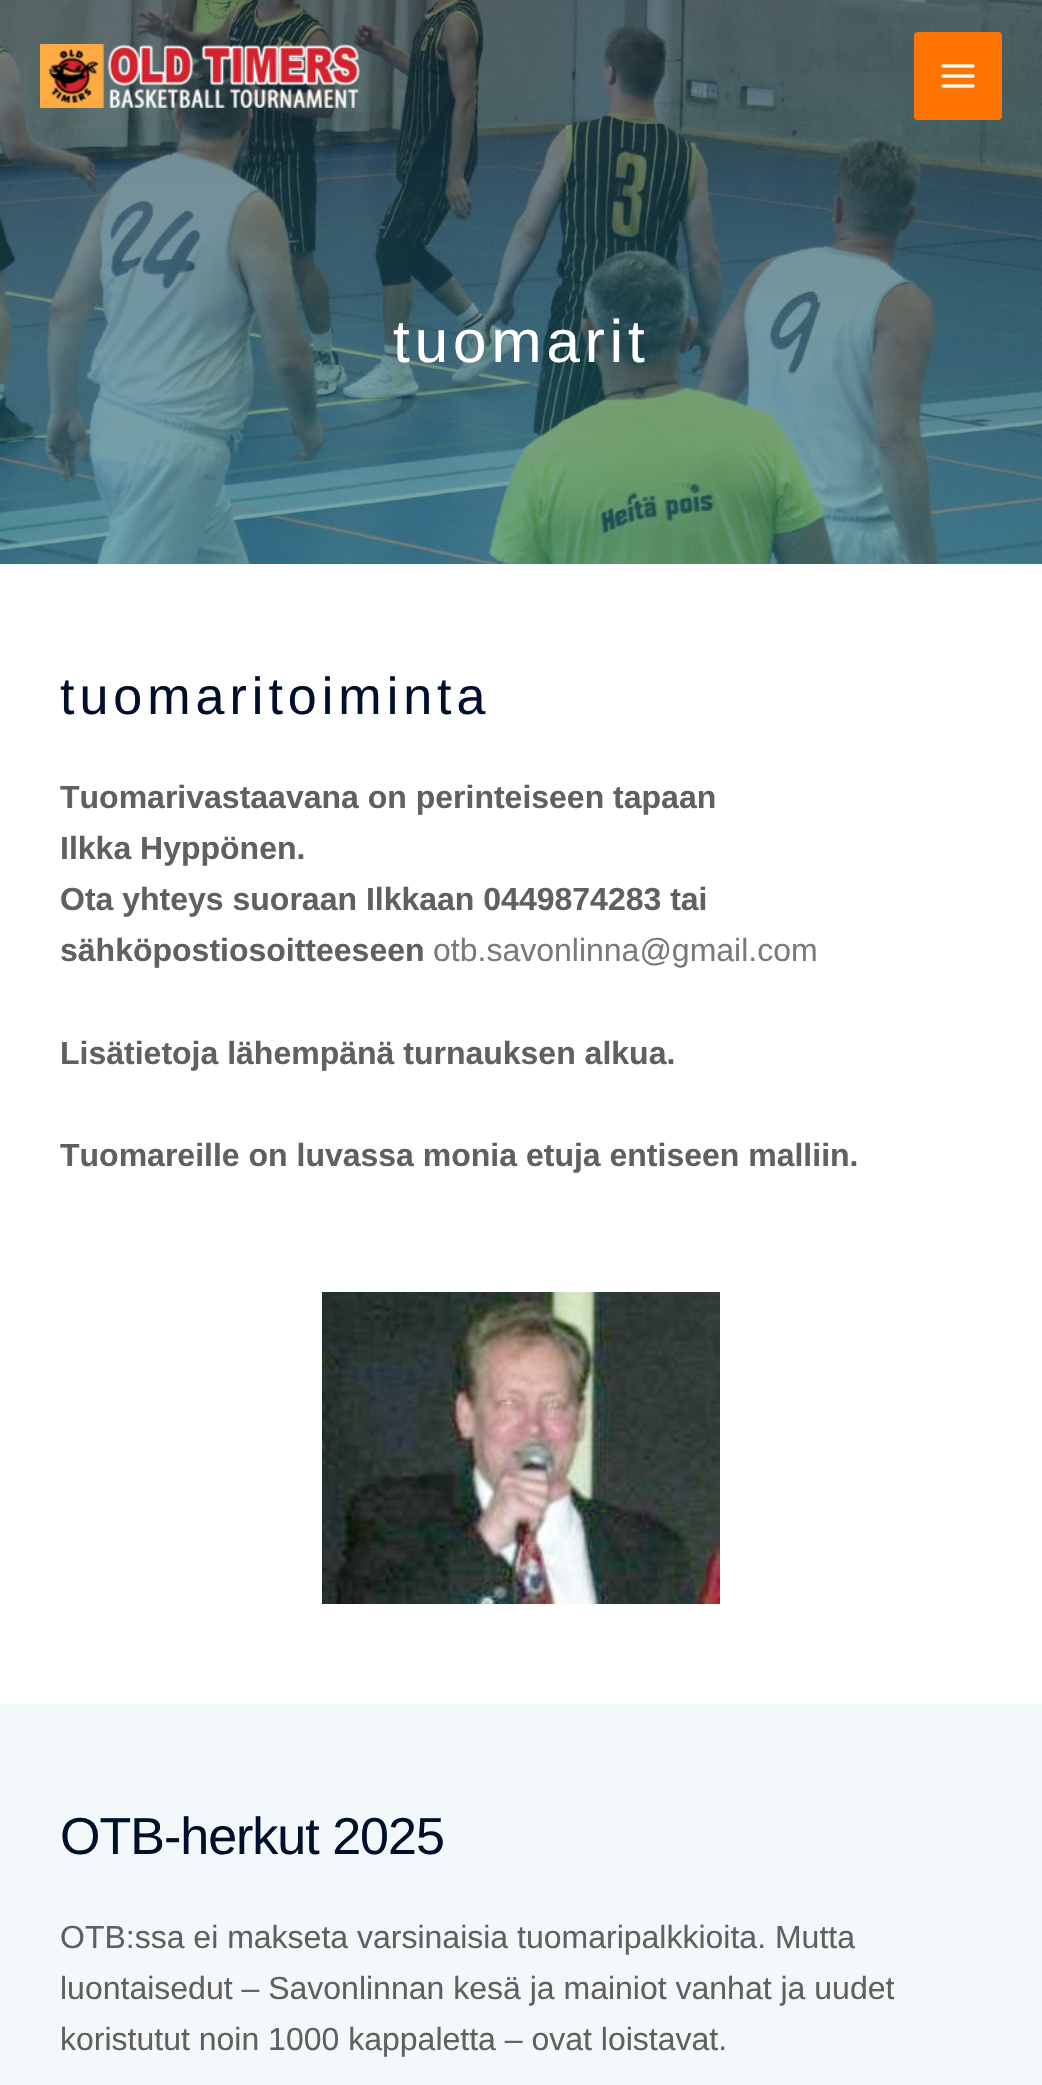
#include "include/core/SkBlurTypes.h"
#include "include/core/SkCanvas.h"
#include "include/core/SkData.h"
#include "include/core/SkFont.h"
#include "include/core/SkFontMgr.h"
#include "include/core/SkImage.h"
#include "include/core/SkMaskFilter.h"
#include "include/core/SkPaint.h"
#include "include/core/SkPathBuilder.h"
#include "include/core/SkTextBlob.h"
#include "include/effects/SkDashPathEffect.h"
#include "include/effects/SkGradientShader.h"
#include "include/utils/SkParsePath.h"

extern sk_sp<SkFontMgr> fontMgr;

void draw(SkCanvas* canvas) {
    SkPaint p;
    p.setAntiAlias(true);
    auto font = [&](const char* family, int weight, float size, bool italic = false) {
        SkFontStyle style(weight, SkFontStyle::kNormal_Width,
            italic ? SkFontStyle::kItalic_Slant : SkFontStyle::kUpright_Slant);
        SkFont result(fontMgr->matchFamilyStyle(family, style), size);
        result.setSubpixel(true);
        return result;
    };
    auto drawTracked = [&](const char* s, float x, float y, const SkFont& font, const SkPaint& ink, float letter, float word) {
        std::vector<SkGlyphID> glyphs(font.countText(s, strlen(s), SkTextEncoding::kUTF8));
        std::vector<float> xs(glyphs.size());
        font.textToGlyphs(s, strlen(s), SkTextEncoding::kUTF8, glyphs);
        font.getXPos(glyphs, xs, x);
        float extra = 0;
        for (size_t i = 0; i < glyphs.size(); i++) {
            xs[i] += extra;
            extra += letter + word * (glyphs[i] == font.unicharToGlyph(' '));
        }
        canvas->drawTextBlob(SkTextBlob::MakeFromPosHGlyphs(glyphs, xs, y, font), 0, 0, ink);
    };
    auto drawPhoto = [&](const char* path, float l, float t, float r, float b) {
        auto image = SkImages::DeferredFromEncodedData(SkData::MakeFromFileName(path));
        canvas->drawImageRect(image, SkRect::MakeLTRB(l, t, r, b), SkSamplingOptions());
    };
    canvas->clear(0xFFFFFFFF);
    drawPhoto("media/3.png", 0, 0, 1042, 564);
    drawPhoto("media/1.png", 40, 44, 360, 108);
    p.setColor(0xFFFF7300);
    canvas->drawRoundRect(SkRect::MakeLTRB(914, 32, 1002, 120), 4, 4, p);
    drawPhoto("media/2.png", 941, 64, 975, 88);
    auto font1 = font("Liberation Sans", 400, 60);
    p.setColor(0xFFFFFFFF);
    drawTracked("tuomarit", 393, 362, font1, p, 5, 0);
    auto font2 = font("Liberation Sans", 400, 52);
    p.setColor(0xFF000F2B);
    drawTracked("tuomaritoiminta", 60, 714, font2, p, 5, 0);
    auto font3 = font("Liberation Sans", 700, 32);
    p.setColor(0xFF625F5F);
    {
        const struct { const char* s; float x, y; } items[] = {
            {"Tuomarivastaavana on perinteiseen tapaan", 60, 808},
            {"Ilkka Hyppönen.", 60, 859},
            {"Ota yhteys suoraan Ilkkaan 0449874283 tai", 60, 910},
            {"sähköpostiosoitteeseen", 60, 961},
        };
        for (auto [s, x, y] : items) {
            canvas->drawString(s, x, y, font3, p);
        }
    }
    auto font4 = font("Liberation Sans", 400, 32);
    p.setColor(0xFF7A7A7A);
    canvas->drawString("otb.savonlinna@gmail.com", 433, 961, font4, p);
    p.setColor(0xFF625F5F);
    canvas->drawString("Lisätietoja lähempänä turnauksen alkua.", 60, 1064, font3, p);
    canvas->drawString("Tuomareille on luvassa monia etuja entiseen malliin.", 60, 1166, font3, p);
    drawPhoto("media/4.png", 322, 1292, 720, 1604);
    p.setColor(0xFFF3F9FB);
    canvas->drawRect(SkRect::MakeLTRB(0, 1704, 1042, 2085), p);
    p.setColor(0xFF000F2B);
    drawTracked("OTB-herkut 2025", 60, 1854, font2, p, -1, 0);
    p.setColor(0xFF625F5F);
    {
        const struct { const char* s; float x, y; } items[] = {
            {"OTB:ssa ei makseta varsinaisia tuomaripalkkioita. Mutta", 60, 1948},
            {"luontaisedut – Savonlinnan kesä ja mainiot vanhat ja uudet", 60, 1999},
            {"koristutut noin 1000 kappaletta – ovat loistavat.", 60, 2050},
        };
        for (auto [s, x, y] : items) {
            canvas->drawString(s, x, y, font4, p);
        }
    }
}
